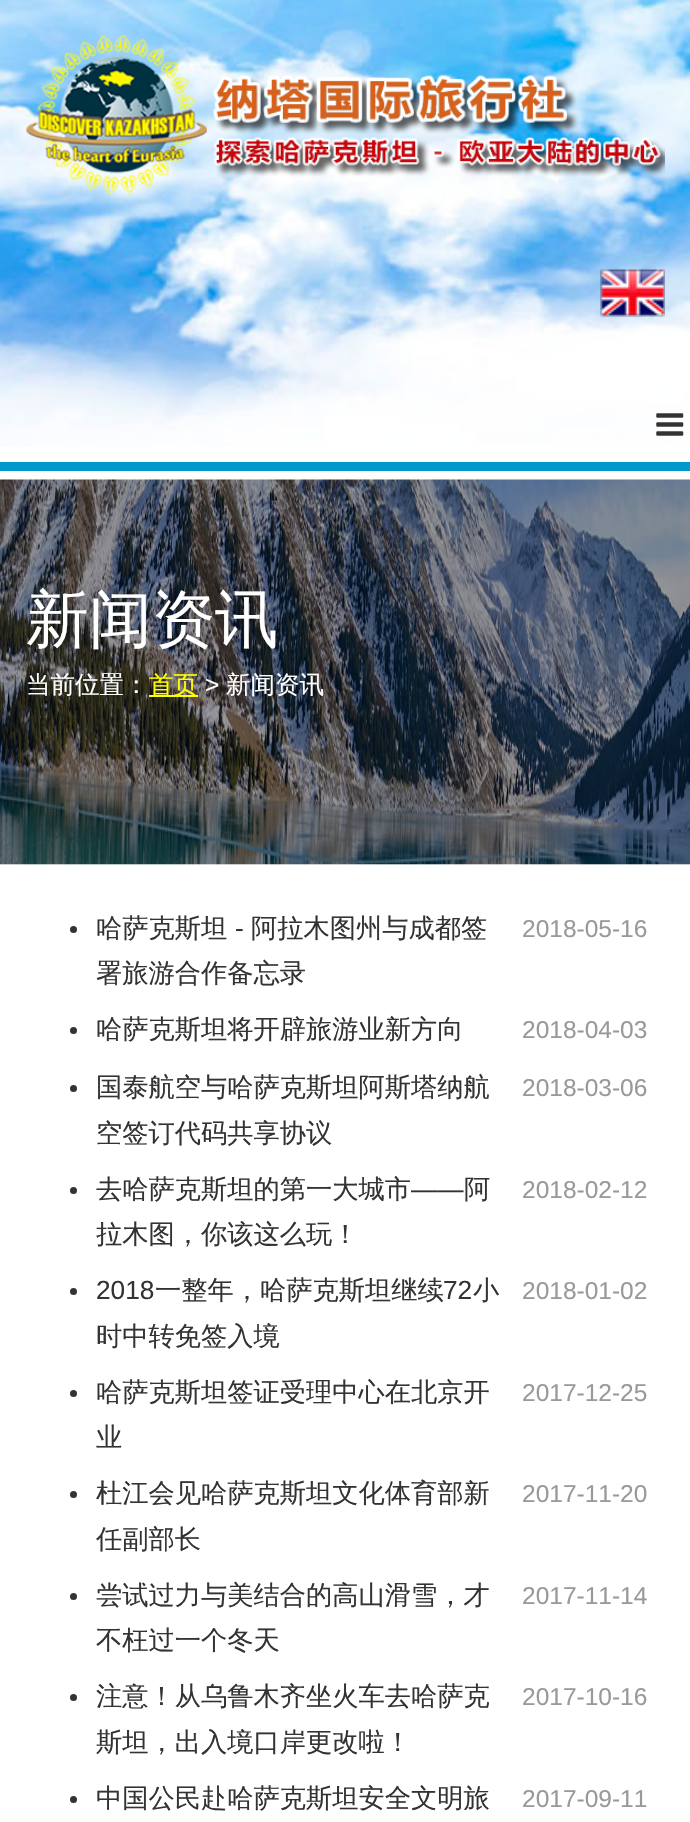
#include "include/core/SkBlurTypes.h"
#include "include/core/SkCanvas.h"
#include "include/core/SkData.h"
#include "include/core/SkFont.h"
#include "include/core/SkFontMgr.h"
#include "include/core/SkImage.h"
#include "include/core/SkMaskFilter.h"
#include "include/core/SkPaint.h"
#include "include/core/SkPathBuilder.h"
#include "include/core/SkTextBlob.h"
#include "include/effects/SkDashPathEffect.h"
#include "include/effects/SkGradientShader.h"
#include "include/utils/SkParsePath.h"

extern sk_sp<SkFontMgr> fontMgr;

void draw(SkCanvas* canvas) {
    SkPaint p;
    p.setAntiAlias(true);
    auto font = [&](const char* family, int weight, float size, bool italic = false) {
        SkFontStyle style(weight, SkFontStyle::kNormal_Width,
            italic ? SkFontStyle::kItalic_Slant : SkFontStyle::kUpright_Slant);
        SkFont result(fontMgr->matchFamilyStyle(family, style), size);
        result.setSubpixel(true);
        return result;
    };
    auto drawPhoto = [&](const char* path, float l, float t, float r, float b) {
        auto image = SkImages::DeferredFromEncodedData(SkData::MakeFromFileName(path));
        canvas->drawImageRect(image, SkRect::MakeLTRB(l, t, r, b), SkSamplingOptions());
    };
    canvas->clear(0xFFFFFFFF);
    drawPhoto("media/1.png", 0, 0, 690, 447);
    p.setColor(0xFF0099CC);
    canvas->drawRect(SkRect::MakeLTRB(0, 462, 690, 471), p);
    drawPhoto("media/2.png", 26, 35, 665, 195);
    drawPhoto("media/3.png", 600, 269, 665, 317);
    drawPhoto("media/4.png", 656, 413, 684, 436);
    drawPhoto("media/5.png", 0, 479, 690, 865);
    auto font1 = font("WenQuanYi Zen Hei", 500, 63);
    p.setColor(0xFFFFFFFF);
    canvas->drawString("新闻资讯", 26, 641, font1, p);
    auto font2 = font("WenQuanYi Zen Hei", 500, 24.5f);
    canvas->drawString("当前位置：", 26, 693, font2, p);
    p.setColor(0xFFFFFF00);
    canvas->drawRect(SkRect::MakeLTRB(149, 695, 198, 697), p);
    canvas->drawString("首页", 149, 693, font2, p);
    auto font3 = font("Liberation Sans", 400, 24.5f);
    p.setColor(0xFFFFFFFF);
    canvas->drawString(">", 205, 693, font3, p);
    canvas->drawString("新闻资讯", 226, 693, font2, p);
    p.setColor(0x66FFFFFF);
    canvas->drawRect(SkRect::MakeLTRB(0, 864, 690, 865), p);
    p.setColor(0xFF333333);
    canvas->drawCircle(73.5f, 929.5f, 3.5f, p);
    auto font4 = font("WenQuanYi Zen Hei", 500, 26.25f);
    canvas->drawString("哈萨克斯坦", 96, 937, font4, p);
    auto font5 = font("Liberation Sans", 400, 26.25f);
    canvas->drawString("-", 235, 937, font5, p);
    canvas->drawString("阿拉木图州与成都签", 251, 937, font4, p);
    p.setColor(0xFF999999);
    canvas->drawString("2018-05-16", 522, 937, font3, p);
    p.setColor(0xFF333333);
    canvas->drawString("署旅游合作备忘录", 96, 982, font4, p);
    canvas->drawCircle(73.5f, 1030.5f, 3.5f, p);
    canvas->drawString("哈萨克斯坦将开辟旅游业新方向", 96, 1038, font4, p);
    p.setColor(0xFF999999);
    canvas->drawString("2018-04-03", 522, 1038, font3, p);
    p.setColor(0xFF333333);
    canvas->drawCircle(73.5f, 1088.5f, 3.5f, p);
    canvas->drawString("国泰航空与哈萨克斯坦阿斯塔纳航", 96, 1096, font4, p);
    p.setColor(0xFF999999);
    canvas->drawString("2018-03-06", 522, 1096, font3, p);
    p.setColor(0xFF333333);
    canvas->drawString("空签订代码共享协议", 96, 1142, font4, p);
    canvas->drawCircle(73.5f, 1190.5f, 3.5f, p);
    canvas->drawString("去哈萨克斯坦的第一大城市", 96, 1198, font4, p);
    canvas->drawString("——", 411, 1198, font5, p);
    canvas->drawString("阿", 464, 1198, font4, p);
    p.setColor(0xFF999999);
    canvas->drawString("2018-02-12", 522, 1198, font3, p);
    p.setColor(0xFF333333);
    canvas->drawString("拉木图，你该这么玩！", 96, 1243, font4, p);
    canvas->drawCircle(73.5f, 1291.5f, 3.5f, p);
    canvas->drawString("2018", 96, 1299, font5, p);
    canvas->drawString("一整年，哈萨克斯坦继续", 155, 1299, font4, p);
    canvas->drawString("72", 443, 1299, font5, p);
    canvas->drawString("小", 473, 1299, font4, p);
    p.setColor(0xFF999999);
    canvas->drawString("2018-01-02", 522, 1299, font3, p);
    p.setColor(0xFF333333);
    canvas->drawString("时中转免签入境", 96, 1345, font4, p);
    canvas->drawCircle(73.5f, 1393.5f, 3.5f, p);
    canvas->drawString("哈萨克斯坦签证受理中心在北京开", 96, 1401, font4, p);
    p.setColor(0xFF999999);
    canvas->drawString("2017-12-25", 522, 1401, font3, p);
    p.setColor(0xFF333333);
    canvas->drawString("业", 96, 1446, font4, p);
    canvas->drawCircle(73.5f, 1494.5f, 3.5f, p);
    canvas->drawString("杜江会见哈萨克斯坦文化体育部新", 96, 1502, font4, p);
    p.setColor(0xFF999999);
    canvas->drawString("2017-11-20", 522, 1502, font3, p);
    p.setColor(0xFF333333);
    canvas->drawString("任副部长", 96, 1548, font4, p);
    canvas->drawCircle(73.5f, 1596.5f, 3.5f, p);
    canvas->drawString("尝试过力与美结合的高山滑雪，才", 96, 1604, font4, p);
    p.setColor(0xFF999999);
    canvas->drawString("2017-11-14", 522, 1604, font3, p);
    p.setColor(0xFF333333);
    canvas->drawString("不枉过一个冬天", 96, 1649, font4, p);
    canvas->drawCircle(73.5f, 1697.5f, 3.5f, p);
    canvas->drawString("注意！从乌鲁木齐坐火车去哈萨克", 96, 1705, font4, p);
    p.setColor(0xFF999999);
    canvas->drawString("2017-10-16", 522, 1705, font3, p);
    p.setColor(0xFF333333);
    canvas->drawString("斯坦，出入境口岸更改啦！", 96, 1751, font4, p);
    canvas->drawCircle(73.5f, 1799.5f, 3.5f, p);
    canvas->drawString("中国公民赴哈萨克斯坦安全文明旅", 96, 1807, font4, p);
    p.setColor(0xFF999999);
    canvas->drawString("2017-09-11", 522, 1807, font3, p);
}
